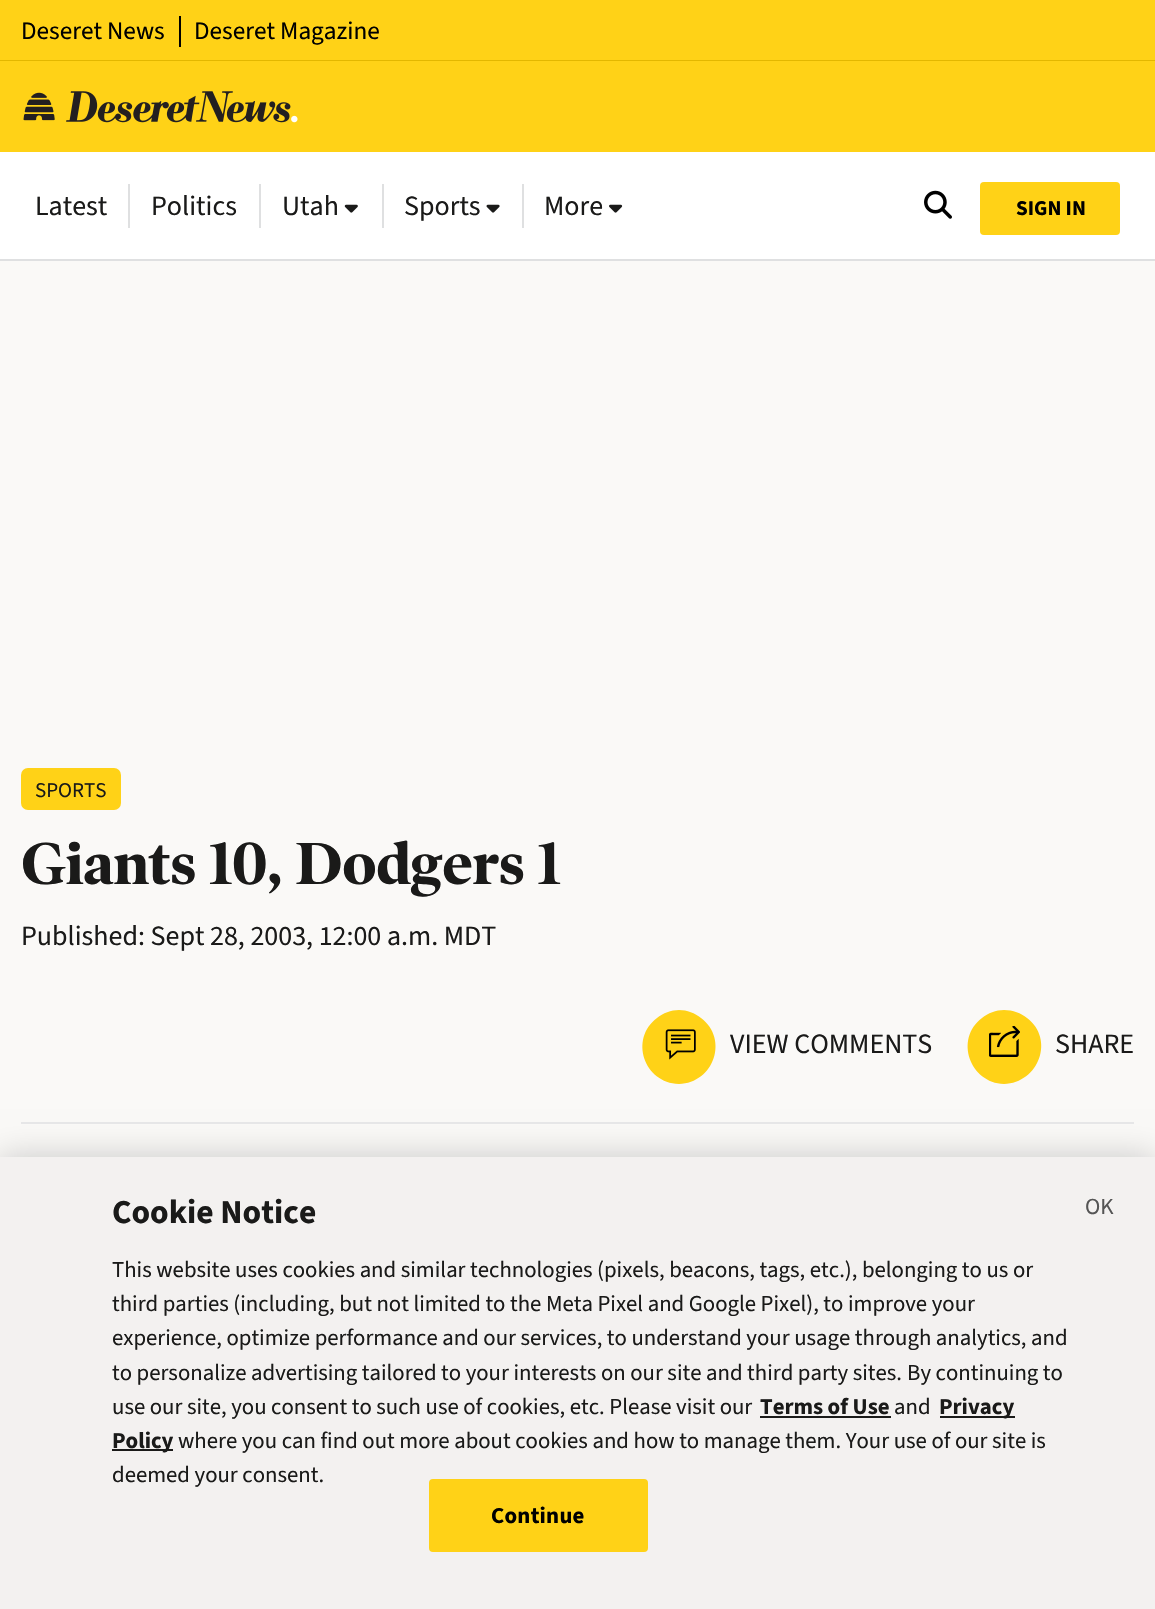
#include "include/core/SkBlurTypes.h"
#include "include/core/SkCanvas.h"
#include "include/core/SkData.h"
#include "include/core/SkFont.h"
#include "include/core/SkFontMgr.h"
#include "include/core/SkImage.h"
#include "include/core/SkMaskFilter.h"
#include "include/core/SkPaint.h"
#include "include/core/SkPathBuilder.h"
#include "include/core/SkTextBlob.h"
#include "include/effects/SkDashPathEffect.h"
#include "include/effects/SkGradientShader.h"
#include "include/utils/SkParsePath.h"

extern sk_sp<SkFontMgr> fontMgr;

void draw(SkCanvas* canvas) {
    SkPaint p;
    p.setAntiAlias(true);
    auto font = [&](const char* family, int weight, float size, bool italic = false) {
        SkFontStyle style(weight, SkFontStyle::kNormal_Width,
            italic ? SkFontStyle::kItalic_Slant : SkFontStyle::kUpright_Slant);
        SkFont result(fontMgr->matchFamilyStyle(family, style), size);
        result.setSubpixel(true);
        return result;
    };
    auto drawTracked = [&](const char* s, float x, float y, const SkFont& font, const SkPaint& ink, float letter, float word) {
        std::vector<SkGlyphID> glyphs(font.countText(s, strlen(s), SkTextEncoding::kUTF8));
        std::vector<float> xs(glyphs.size());
        font.textToGlyphs(s, strlen(s), SkTextEncoding::kUTF8, glyphs);
        font.getXPos(glyphs, xs, x);
        float extra = 0;
        for (size_t i = 0; i < glyphs.size(); i++) {
            xs[i] += extra;
            extra += letter + word * (glyphs[i] == font.unicharToGlyph(' '));
        }
        canvas->drawTextBlob(SkTextBlob::MakeFromPosHGlyphs(glyphs, xs, y, font), 0, 0, ink);
    };
    auto drawPhoto = [&](const char* path, float l, float t, float r, float b) {
        auto image = SkImages::DeferredFromEncodedData(SkData::MakeFromFileName(path));
        canvas->drawImageRect(image, SkRect::MakeLTRB(l, t, r, b), SkSamplingOptions());
    };
    canvas->clear(0xFFFAF9F7);
    p.setColor(0xFFFFD217);
    canvas->drawRect(SkRect::MakeLTRB(0, 0, 1155, 60), p);
    p.setColor(0xFFE3B700);
    canvas->drawRect(SkRect::MakeLTRB(0, 60, 1155, 61), p);
    auto font1 = font("Source Sans 3", 400, 25.25f);
    p.setColor(0xFF000000);
    canvas->drawString("Deseret News", 21, 39, font1, p);
    canvas->drawRect(SkRect::MakeLTRB(179, 16, 181, 47), p);
    canvas->drawString("Deseret Magazine", 194, 39, font1, p);
    p.setColor(0xFFFFD217);
    canvas->drawRect(SkRect::MakeLTRB(0, 61, 1155, 152), p);
    drawPhoto("media/1.png", 23, 91, 298, 123);
    p.setColor(0xFFFFFFFF);
    canvas->drawRect(SkRect::MakeLTRB(0, 152, 1155, 259), p);
    p.setColor(0xFFDFE0E1);
    canvas->drawRect(SkRect::MakeLTRB(0, 259, 1155, 261), p);
    auto font2 = font("Source Sans 3", 400, 28);
    p.setColor(0xFF1A1A19);
    canvas->drawString("Latest", 35, 215, font2, p);
    p.setColor(0xFFDFE0E1);
    canvas->drawRect(SkRect::MakeLTRB(128, 184, 130, 228), p);
    p.setColor(0xFF1A1A19);
    canvas->drawString("Politics", 151, 215, font2, p);
    p.setColor(0xFFDFE0E1);
    canvas->drawRect(SkRect::MakeLTRB(259, 184, 261, 228), p);
    p.setColor(0xFF1A1A19);
    canvas->drawString("Utah", 282, 215, font2, p);
    drawPhoto("media/2.png", 344, 204, 358, 213);
    p.setColor(0xFFDFE0E1);
    canvas->drawRect(SkRect::MakeLTRB(382, 184, 384, 228), p);
    p.setColor(0xFF1A1A19);
    canvas->drawString("Sports", 404, 215, font2, p);
    drawPhoto("media/3.png", 486, 204, 500, 213);
    p.setColor(0xFFDFE0E1);
    canvas->drawRect(SkRect::MakeLTRB(522, 184, 524, 228), p);
    p.setColor(0xFF1A1A19);
    canvas->drawString("More", 544, 215, font2, p);
    drawPhoto("media/4.png", 609, 204, 623, 213);
    drawPhoto("media/5.png", 924, 190, 952, 219);
    p.setColor(0xFFFFD217);
    canvas->drawRoundRect(SkRect::MakeLTRB(980, 182, 1120, 235), 4, 4, p);
    auto font3 = font("Source Sans 3", 700, 21);
    p.setColor(0xFF000000);
    canvas->drawString("SIGN IN", 1016, 215, font3, p);
    p.setColor(0xFFFFD217);
    canvas->drawRoundRect(SkRect::MakeLTRB(21, 768, 121, 810), 7, 7, p);
    auto font4 = font("Source Sans 3", 400, 21);
    p.setColor(0xFF1A1A19);
    canvas->drawString("SPORTS", 35, 797, font4, p);
    auto font5 = font("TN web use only", 700, 60);
    canvas->drawString("Giants 10, Dodgers 1", 21, 884, font5, p);
    canvas->drawString("Published: Sept 28, 2003, 12:00 a.m. MDT", 21, 945, font2, p);
    p.setColor(0xFFFFD217);
    canvas->drawPath(SkPathBuilder().moveTo(679, 1084).cubicTo(714, 1083, 729, 1039, 701, 1018).cubicTo(695, 1013, 687, 1010, 679, 1010).cubicTo(671, 1010, 663, 1013, 657, 1018).cubicTo(629, 1039, 644, 1083, 679, 1084).close().detach(), p);
    drawPhoto("media/6.png", 665, 1029, 696, 1060);
    p.setColor(0xFF1A1A19);
    canvas->drawString("VIEW COMMENTS", 730, 1053, font2, p);
    p.setColor(0xFFFFD217);
    canvas->drawPath(SkPathBuilder().moveTo(1004, 1084).cubicTo(1039, 1083, 1055, 1039, 1027, 1018).cubicTo(1021, 1013, 1013, 1010, 1004, 1010).cubicTo(996, 1010, 988, 1013, 982, 1018).cubicTo(954, 1039, 970, 1083, 1004, 1084).close().detach(), p);
    drawPhoto("media/7.png", 989, 1026, 1020, 1057);
    p.setColor(0xFF1A1A19);
    canvas->drawString("SHARE", 1055, 1053, font2, p);
    p.setColor(0xFFE7E7E8);
    canvas->drawRect(SkRect::MakeLTRB(21, 1122, 1134, 1124), p);
    p.setColor(0x33000000);
    p.setMaskFilter(SkMaskFilter::MakeBlur(kNormal_SkBlurStyle, 16));
    canvas->drawRect(SkRect::MakeLTRB(0, 1157, 1155, 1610), p);
    p.setMaskFilter(nullptr);
    p.setColor(0xFFF3F1F0);
    canvas->drawRect(SkRect::MakeLTRB(0, 1157, 1155, 1609), p);
    auto font6 = font("Source Sans 3", 700, 33.5f);
    p.setColor(0xFF1A1A19);
    canvas->drawString("Cookie Notice", 112, 1223, font6, p);
    auto font7 = font("Source Sans 3", 400, 22.75f);
    {
        const struct { const char* s; float x, y; } items[] = {
            {"This website uses cookies and similar technologies (pixels, beacons, tags, etc.), belonging to us or", 112, 1277},
            {"third parties (including, but not limited to the Meta Pixel and Google Pixel), to improve your", 112, 1311},
            {"experience, optimize performance and our services, to understand your usage through analytics, and", 112, 1345},
            {"to personalize advertising tailored to your interests on our site and third party sites.", 112, 1380},
            {"By continuing to", 907, 1380},
            {"use our site, you consent to such use of cookies, etc. Please visit our", 112, 1414},
        };
        for (auto [s, x, y] : items) {
            canvas->drawString(s, x, y, font7, p);
        }
    }
    auto font8 = font("Source Sans 3", 700, 22.75f);
    canvas->drawString("Terms of Use", 760, 1414, font8, p);
    canvas->drawRect(SkRect::MakeLTRB(760, 1416, 891, 1418), p);
    canvas->drawString("and", 894, 1414, font7, p);
    canvas->drawRect(SkRect::MakeLTRB(940, 1416, 1015, 1418), p);
    canvas->drawString("Privacy", 939, 1414, font8, p);
    canvas->drawRect(SkRect::MakeLTRB(112, 1449, 173, 1451), p);
    canvas->drawString("Policy", 112, 1448, font8, p);
    canvas->drawString("where you can find out more about cookies and how to manage them. Your use of our site is", 178, 1448, font7, p);
    canvas->drawString("deemed your consent.", 112, 1482, font7, p);
    p.setColor(0xFFFFD217);
    canvas->drawRoundRect(SkRect::MakeLTRB(430, 1480, 647, 1551), 3, 3, p);
    p.setStyle(SkPaint::kStroke_Style);
    p.setStrokeWidth(2);
    canvas->drawRoundRect(SkRect::MakeLTRB(430, 1480, 647, 1551), 3, 3, p);
    p.setStyle(SkPaint::kFill_Style);
    p.setColor(0xFF000000);
    drawTracked("Continue", 491, 1523, font8, p, 0.25f, 0);
    auto font9 = font("Source Sans 3", 400, 23);
    p.setColor(0xFF555555);
    canvas->drawString("OK", 1085, 1214, font9, p);
}
